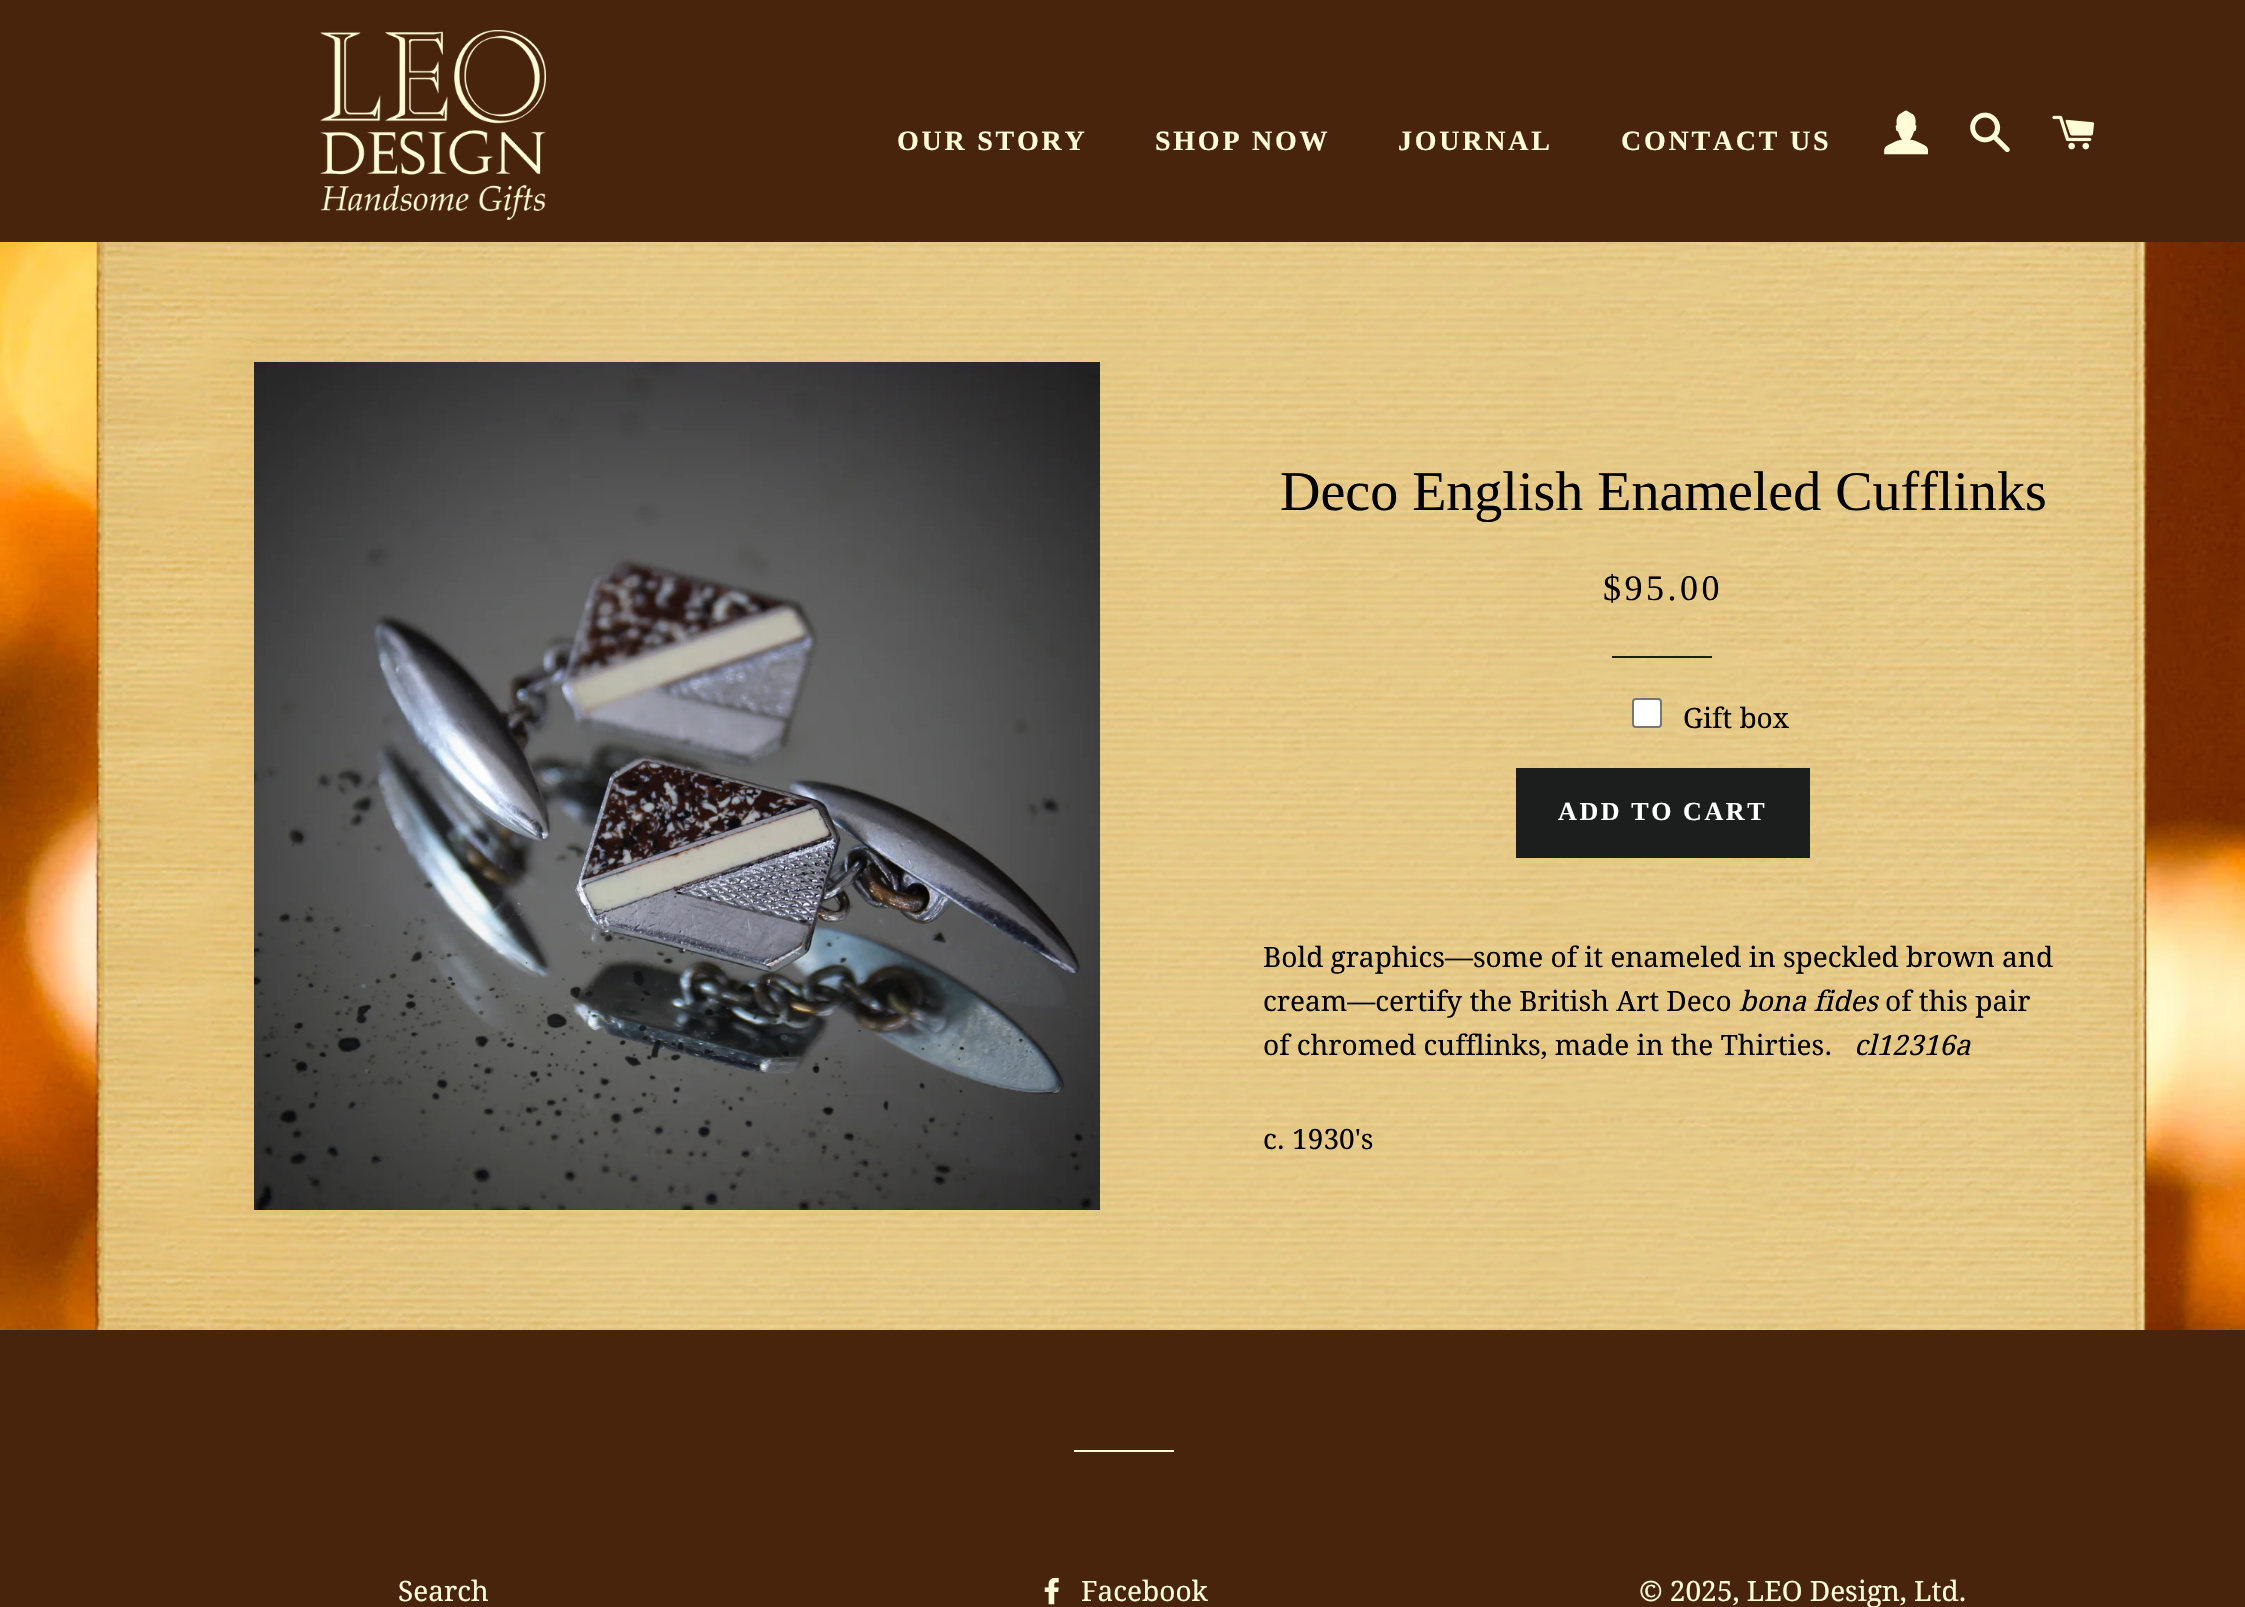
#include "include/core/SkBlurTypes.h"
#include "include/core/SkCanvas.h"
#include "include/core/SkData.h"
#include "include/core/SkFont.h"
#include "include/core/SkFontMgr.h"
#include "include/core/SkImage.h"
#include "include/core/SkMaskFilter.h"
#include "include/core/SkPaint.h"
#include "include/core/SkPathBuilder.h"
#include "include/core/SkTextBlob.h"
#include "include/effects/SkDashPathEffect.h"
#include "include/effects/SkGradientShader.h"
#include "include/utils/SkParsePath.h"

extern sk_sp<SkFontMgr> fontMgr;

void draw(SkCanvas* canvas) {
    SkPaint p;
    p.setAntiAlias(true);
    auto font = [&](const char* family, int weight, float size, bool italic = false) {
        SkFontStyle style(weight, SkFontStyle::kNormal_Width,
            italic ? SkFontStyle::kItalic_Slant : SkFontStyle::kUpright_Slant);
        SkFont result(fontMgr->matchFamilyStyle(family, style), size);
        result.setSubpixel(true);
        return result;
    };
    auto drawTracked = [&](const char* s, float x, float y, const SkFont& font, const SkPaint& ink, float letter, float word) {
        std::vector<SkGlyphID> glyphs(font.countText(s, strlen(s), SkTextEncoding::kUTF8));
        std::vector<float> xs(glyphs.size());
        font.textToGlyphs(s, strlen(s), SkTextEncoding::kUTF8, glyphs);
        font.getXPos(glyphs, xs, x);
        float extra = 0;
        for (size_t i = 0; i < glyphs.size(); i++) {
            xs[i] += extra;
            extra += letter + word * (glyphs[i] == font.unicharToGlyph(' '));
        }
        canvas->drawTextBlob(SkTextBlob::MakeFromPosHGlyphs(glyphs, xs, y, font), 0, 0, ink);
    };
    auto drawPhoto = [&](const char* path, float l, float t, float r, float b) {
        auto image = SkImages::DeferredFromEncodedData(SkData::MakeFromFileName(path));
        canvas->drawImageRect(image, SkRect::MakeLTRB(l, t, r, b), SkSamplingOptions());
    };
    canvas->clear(0xFF49240C);
    drawPhoto("media/1.png", 320, 30, 546, 220);
    auto font1 = font("Liberation Serif", 700, 28);
    p.setColor(0xFFFFFDD7);
    {
        const struct { const char* s; float x, y; } items[] = {
            {"OUR STORY", 897, 150},
            {"SHOP NOW", 1155, 150},
            {"JOURNAL", 1398, 150},
            {"CONTACT US", 1621, 150},
        };
        for (auto [s, x, y] : items) {
            drawTracked(s, x, y, font1, p, 2.75f, 0);
        }
    }
    drawPhoto("media/2.png", 1884, 110, 1928, 155);
    drawPhoto("media/3.png", 1970, 112, 2010, 152);
    drawPhoto("media/4.png", 2052, 115, 2094, 150);
    drawPhoto("media/5.png", 0, 242, 2245, 1330);
    drawPhoto("media/6.png", 254, 362, 1100, 1210);
    auto font2 = font("Liberation Serif", 400, 56);
    p.setColor(0xFF000000);
    canvas->drawString("Deco English Enameled Cufflinks", 1280, 510, font2, p);
    auto font3 = font("Liberation Serif", 400, 36);
    drawTracked("$95.00", 1603, 600, font3, p, 3.5f, 0);
    p.setColor(0xFF1C1D1D);
    canvas->drawRect(SkRect::MakeLTRB(1612, 656, 1712, 658), p);
    p.setColor(0xFFFFFFFF);
    canvas->drawRoundRect(SkRect::MakeLTRB(1633, 699, 1661, 727), 3, 3, p);
    p.setStyle(SkPaint::kStroke_Style);
    p.setStrokeWidth(2);
    p.setColor(0xFF767676);
    canvas->drawRoundRect(SkRect::MakeLTRB(1633, 699, 1661, 727), 3, 3, p);
    auto font4 = font("Droid Serif", 400, 28);
    p.setStyle(SkPaint::kFill_Style);
    p.setColor(0xFF000000);
    canvas->drawString("Gift box", 1683, 728, font4, p);
    p.setColor(0xFF1C1D1D);
    canvas->drawRect(SkRect::MakeLTRB(1516, 768, 1810, 858), p);
    auto font5 = font("Liberation Serif", 700, 26);
    p.setColor(0xFFFFFFFF);
    drawTracked("ADD TO CART", 1558, 820, font5, p, 2.6f, 0);
    p.setColor(0xFF000000);
    canvas->drawString("Bold graphics—some of it enameled in speckled brown and", 1263, 967, font4, p);
    canvas->drawString("cream—certify the British Art Deco", 1263, 1011, font4, p);
    auto font6 = font("Droid Serif", 400, 28, true);
    canvas->drawString("bona fides", 1739, 1011, font6, p);
    canvas->drawString("of this pair", 1885, 1011, font4, p);
    canvas->drawString("of chromed cufflinks, made in the Thirties.", 1263, 1055, font4, p);
    canvas->drawString("cl12316a", 1854, 1055, font6, p);
    canvas->drawString("c. 1930's", 1263, 1149, font4, p);
    p.setColor(0xFFFFFDD7);
    canvas->drawRect(SkRect::MakeLTRB(1074, 1450, 1174, 1452), p);
    canvas->drawString("Search", 398, 1601, font4, p);
    drawPhoto("media/7.png", 1044, 1577, 1059, 1605);
    canvas->drawString("Facebook", 1081, 1601, font4, p);
    canvas->drawString("© 2025, LEO Design, Ltd.", 1639, 1601, font4, p);
}
